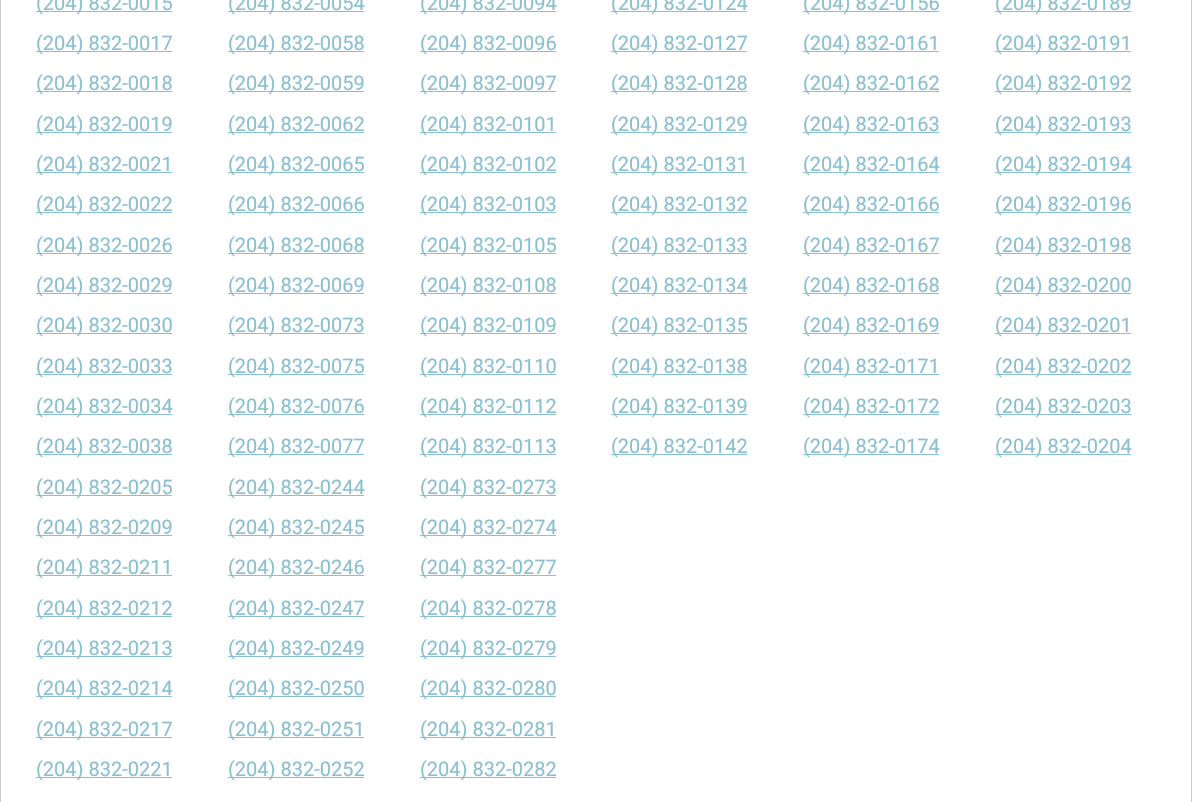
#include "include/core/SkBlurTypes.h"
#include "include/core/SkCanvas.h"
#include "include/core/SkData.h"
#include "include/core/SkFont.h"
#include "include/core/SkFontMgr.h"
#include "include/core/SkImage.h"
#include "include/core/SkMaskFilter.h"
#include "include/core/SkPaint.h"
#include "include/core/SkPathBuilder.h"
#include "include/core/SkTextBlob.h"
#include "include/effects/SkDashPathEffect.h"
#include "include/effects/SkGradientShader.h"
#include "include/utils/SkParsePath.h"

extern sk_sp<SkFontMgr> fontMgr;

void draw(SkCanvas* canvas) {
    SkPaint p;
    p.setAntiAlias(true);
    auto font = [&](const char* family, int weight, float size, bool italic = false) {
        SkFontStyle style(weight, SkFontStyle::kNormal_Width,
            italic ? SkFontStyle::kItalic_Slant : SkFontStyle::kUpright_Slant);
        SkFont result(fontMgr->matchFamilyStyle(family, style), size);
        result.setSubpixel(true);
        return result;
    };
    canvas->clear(0xFFFFFFFF);
    p.setStyle(SkPaint::kStroke_Style);
    p.setStrokeWidth(1);
    p.setColor(0xFFCCCCCC);
    canvas->drawRect(SkRect::MakeLTRB(0.5f, -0.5f, 1191.5f, 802.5f), p);
    p.setStyle(SkPaint::kFill_Style);
    p.setColor(0xFF8AC0D2);
    canvas->drawRect(SkRect::MakeLTRB(36, 11, 172, 12), p);
    auto font1 = font("Roboto", 400, 20);
    canvas->drawString("(204) 832-0015", 36, 10, font1, p);
    canvas->drawRect(SkRect::MakeLTRB(36, 51, 172, 52), p);
    canvas->drawString("(204) 832-0017", 36, 50, font1, p);
    canvas->drawRect(SkRect::MakeLTRB(36, 91, 172, 92), p);
    canvas->drawString("(204) 832-0018", 36, 90, font1, p);
    canvas->drawRect(SkRect::MakeLTRB(36, 132, 172, 133), p);
    canvas->drawString("(204) 832-0019", 36, 131, font1, p);
    canvas->drawRect(SkRect::MakeLTRB(36, 172, 172, 173), p);
    canvas->drawString("(204) 832-0021", 36, 171, font1, p);
    canvas->drawRect(SkRect::MakeLTRB(36, 212, 172, 213), p);
    canvas->drawString("(204) 832-0022", 36, 211, font1, p);
    canvas->drawRect(SkRect::MakeLTRB(36, 253, 172, 254), p);
    canvas->drawString("(204) 832-0026", 36, 252, font1, p);
    canvas->drawRect(SkRect::MakeLTRB(36, 293, 172, 294), p);
    canvas->drawString("(204) 832-0029", 36, 292, font1, p);
    canvas->drawRect(SkRect::MakeLTRB(36, 333, 172, 334), p);
    canvas->drawString("(204) 832-0030", 36, 332, font1, p);
    canvas->drawRect(SkRect::MakeLTRB(36, 374, 172, 375), p);
    canvas->drawString("(204) 832-0033", 36, 373, font1, p);
    canvas->drawRect(SkRect::MakeLTRB(36, 414, 172, 415), p);
    canvas->drawString("(204) 832-0034", 36, 413, font1, p);
    canvas->drawRect(SkRect::MakeLTRB(36, 454, 172, 455), p);
    canvas->drawString("(204) 832-0038", 36, 453, font1, p);
    canvas->drawRect(SkRect::MakeLTRB(228, 11, 364, 12), p);
    canvas->drawString("(204) 832-0054", 228, 10, font1, p);
    canvas->drawRect(SkRect::MakeLTRB(228, 51, 364, 52), p);
    canvas->drawString("(204) 832-0058", 228, 50, font1, p);
    canvas->drawRect(SkRect::MakeLTRB(228, 91, 364, 92), p);
    canvas->drawString("(204) 832-0059", 228, 90, font1, p);
    canvas->drawRect(SkRect::MakeLTRB(228, 132, 364, 133), p);
    canvas->drawString("(204) 832-0062", 228, 131, font1, p);
    canvas->drawRect(SkRect::MakeLTRB(228, 172, 364, 173), p);
    canvas->drawString("(204) 832-0065", 228, 171, font1, p);
    canvas->drawRect(SkRect::MakeLTRB(228, 212, 364, 213), p);
    canvas->drawString("(204) 832-0066", 228, 211, font1, p);
    canvas->drawRect(SkRect::MakeLTRB(228, 253, 364, 254), p);
    canvas->drawString("(204) 832-0068", 228, 252, font1, p);
    canvas->drawRect(SkRect::MakeLTRB(228, 293, 364, 294), p);
    canvas->drawString("(204) 832-0069", 228, 292, font1, p);
    canvas->drawRect(SkRect::MakeLTRB(228, 333, 364, 334), p);
    canvas->drawString("(204) 832-0073", 228, 332, font1, p);
    canvas->drawRect(SkRect::MakeLTRB(228, 374, 364, 375), p);
    canvas->drawString("(204) 832-0075", 228, 373, font1, p);
    canvas->drawRect(SkRect::MakeLTRB(228, 414, 364, 415), p);
    canvas->drawString("(204) 832-0076", 228, 413, font1, p);
    canvas->drawRect(SkRect::MakeLTRB(228, 454, 364, 455), p);
    canvas->drawString("(204) 832-0077", 228, 453, font1, p);
    canvas->drawRect(SkRect::MakeLTRB(420, 11, 556, 12), p);
    canvas->drawString("(204) 832-0094", 420, 10, font1, p);
    canvas->drawRect(SkRect::MakeLTRB(420, 51, 556, 52), p);
    canvas->drawString("(204) 832-0096", 420, 50, font1, p);
    canvas->drawRect(SkRect::MakeLTRB(420, 91, 556, 92), p);
    canvas->drawString("(204) 832-0097", 420, 90, font1, p);
    canvas->drawRect(SkRect::MakeLTRB(420, 132, 556, 133), p);
    canvas->drawString("(204) 832-0101", 420, 131, font1, p);
    canvas->drawRect(SkRect::MakeLTRB(420, 172, 556, 173), p);
    canvas->drawString("(204) 832-0102", 420, 171, font1, p);
    canvas->drawRect(SkRect::MakeLTRB(420, 212, 556, 213), p);
    canvas->drawString("(204) 832-0103", 420, 211, font1, p);
    canvas->drawRect(SkRect::MakeLTRB(420, 253, 556, 254), p);
    canvas->drawString("(204) 832-0105", 420, 252, font1, p);
    canvas->drawRect(SkRect::MakeLTRB(420, 293, 556, 294), p);
    canvas->drawString("(204) 832-0108", 420, 292, font1, p);
    canvas->drawRect(SkRect::MakeLTRB(420, 333, 556, 334), p);
    canvas->drawString("(204) 832-0109", 420, 332, font1, p);
    canvas->drawRect(SkRect::MakeLTRB(420, 374, 556, 375), p);
    canvas->drawString("(204) 832-0110", 420, 373, font1, p);
    canvas->drawRect(SkRect::MakeLTRB(420, 414, 556, 415), p);
    canvas->drawString("(204) 832-0112", 420, 413, font1, p);
    canvas->drawRect(SkRect::MakeLTRB(420, 454, 556, 455), p);
    canvas->drawString("(204) 832-0113", 420, 453, font1, p);
    canvas->drawRect(SkRect::MakeLTRB(611, 11, 747, 12), p);
    canvas->drawString("(204) 832-0124", 611, 10, font1, p);
    canvas->drawRect(SkRect::MakeLTRB(611, 51, 747, 52), p);
    canvas->drawString("(204) 832-0127", 611, 50, font1, p);
    canvas->drawRect(SkRect::MakeLTRB(611, 91, 747, 92), p);
    canvas->drawString("(204) 832-0128", 611, 90, font1, p);
    canvas->drawRect(SkRect::MakeLTRB(611, 132, 747, 133), p);
    canvas->drawString("(204) 832-0129", 611, 131, font1, p);
    canvas->drawRect(SkRect::MakeLTRB(611, 172, 747, 173), p);
    canvas->drawString("(204) 832-0131", 611, 171, font1, p);
    canvas->drawRect(SkRect::MakeLTRB(611, 212, 747, 213), p);
    canvas->drawString("(204) 832-0132", 611, 211, font1, p);
    canvas->drawRect(SkRect::MakeLTRB(611, 253, 747, 254), p);
    canvas->drawString("(204) 832-0133", 611, 252, font1, p);
    canvas->drawRect(SkRect::MakeLTRB(611, 293, 747, 294), p);
    canvas->drawString("(204) 832-0134", 611, 292, font1, p);
    canvas->drawRect(SkRect::MakeLTRB(611, 333, 747, 334), p);
    canvas->drawString("(204) 832-0135", 611, 332, font1, p);
    canvas->drawRect(SkRect::MakeLTRB(611, 374, 747, 375), p);
    canvas->drawString("(204) 832-0138", 611, 373, font1, p);
    canvas->drawRect(SkRect::MakeLTRB(611, 414, 747, 415), p);
    canvas->drawString("(204) 832-0139", 611, 413, font1, p);
    canvas->drawRect(SkRect::MakeLTRB(611, 454, 747, 455), p);
    canvas->drawString("(204) 832-0142", 611, 453, font1, p);
    canvas->drawRect(SkRect::MakeLTRB(803, 11, 939, 12), p);
    canvas->drawString("(204) 832-0156", 803, 10, font1, p);
    canvas->drawRect(SkRect::MakeLTRB(803, 51, 939, 52), p);
    canvas->drawString("(204) 832-0161", 803, 50, font1, p);
    canvas->drawRect(SkRect::MakeLTRB(803, 91, 939, 92), p);
    canvas->drawString("(204) 832-0162", 803, 90, font1, p);
    canvas->drawRect(SkRect::MakeLTRB(803, 132, 939, 133), p);
    canvas->drawString("(204) 832-0163", 803, 131, font1, p);
    canvas->drawRect(SkRect::MakeLTRB(803, 172, 939, 173), p);
    canvas->drawString("(204) 832-0164", 803, 171, font1, p);
    canvas->drawRect(SkRect::MakeLTRB(803, 212, 939, 213), p);
    canvas->drawString("(204) 832-0166", 803, 211, font1, p);
    canvas->drawRect(SkRect::MakeLTRB(803, 253, 939, 254), p);
    canvas->drawString("(204) 832-0167", 803, 252, font1, p);
    canvas->drawRect(SkRect::MakeLTRB(803, 293, 939, 294), p);
    canvas->drawString("(204) 832-0168", 803, 292, font1, p);
    canvas->drawRect(SkRect::MakeLTRB(803, 333, 939, 334), p);
    canvas->drawString("(204) 832-0169", 803, 332, font1, p);
    canvas->drawRect(SkRect::MakeLTRB(803, 374, 939, 375), p);
    canvas->drawString("(204) 832-0171", 803, 373, font1, p);
    canvas->drawRect(SkRect::MakeLTRB(803, 414, 939, 415), p);
    canvas->drawString("(204) 832-0172", 803, 413, font1, p);
    canvas->drawRect(SkRect::MakeLTRB(803, 454, 939, 455), p);
    canvas->drawString("(204) 832-0174", 803, 453, font1, p);
    canvas->drawRect(SkRect::MakeLTRB(995, 11, 1131, 12), p);
    canvas->drawString("(204) 832-0189", 995, 10, font1, p);
    canvas->drawRect(SkRect::MakeLTRB(995, 51, 1131, 52), p);
    canvas->drawString("(204) 832-0191", 995, 50, font1, p);
    canvas->drawRect(SkRect::MakeLTRB(995, 91, 1131, 92), p);
    canvas->drawString("(204) 832-0192", 995, 90, font1, p);
    canvas->drawRect(SkRect::MakeLTRB(995, 132, 1131, 133), p);
    canvas->drawString("(204) 832-0193", 995, 131, font1, p);
    canvas->drawRect(SkRect::MakeLTRB(995, 172, 1131, 173), p);
    canvas->drawString("(204) 832-0194", 995, 171, font1, p);
    canvas->drawRect(SkRect::MakeLTRB(995, 212, 1131, 213), p);
    canvas->drawString("(204) 832-0196", 995, 211, font1, p);
    canvas->drawRect(SkRect::MakeLTRB(995, 253, 1131, 254), p);
    canvas->drawString("(204) 832-0198", 995, 252, font1, p);
    canvas->drawRect(SkRect::MakeLTRB(995, 293, 1131, 294), p);
    canvas->drawString("(204) 832-0200", 995, 292, font1, p);
    canvas->drawRect(SkRect::MakeLTRB(995, 333, 1131, 334), p);
    canvas->drawString("(204) 832-0201", 995, 332, font1, p);
    canvas->drawRect(SkRect::MakeLTRB(995, 374, 1131, 375), p);
    canvas->drawString("(204) 832-0202", 995, 373, font1, p);
    canvas->drawRect(SkRect::MakeLTRB(995, 414, 1131, 415), p);
    canvas->drawString("(204) 832-0203", 995, 413, font1, p);
    canvas->drawRect(SkRect::MakeLTRB(995, 454, 1131, 455), p);
    canvas->drawString("(204) 832-0204", 995, 453, font1, p);
    canvas->drawRect(SkRect::MakeLTRB(36, 495, 172, 496), p);
    canvas->drawString("(204) 832-0205", 36, 494, font1, p);
    canvas->drawRect(SkRect::MakeLTRB(36, 535, 172, 536), p);
    canvas->drawString("(204) 832-0209", 36, 534, font1, p);
    canvas->drawRect(SkRect::MakeLTRB(36, 575, 172, 576), p);
    canvas->drawString("(204) 832-0211", 36, 574, font1, p);
    canvas->drawRect(SkRect::MakeLTRB(36, 616, 172, 617), p);
    canvas->drawString("(204) 832-0212", 36, 615, font1, p);
    canvas->drawRect(SkRect::MakeLTRB(36, 656, 172, 657), p);
    canvas->drawString("(204) 832-0213", 36, 655, font1, p);
    canvas->drawRect(SkRect::MakeLTRB(36, 696, 172, 697), p);
    canvas->drawString("(204) 832-0214", 36, 695, font1, p);
    canvas->drawRect(SkRect::MakeLTRB(36, 737, 172, 738), p);
    canvas->drawString("(204) 832-0217", 36, 736, font1, p);
    canvas->drawRect(SkRect::MakeLTRB(36, 777, 172, 778), p);
    canvas->drawString("(204) 832-0221", 36, 776, font1, p);
    canvas->drawRect(SkRect::MakeLTRB(228, 495, 364, 496), p);
    canvas->drawString("(204) 832-0244", 228, 494, font1, p);
    canvas->drawRect(SkRect::MakeLTRB(228, 535, 364, 536), p);
    canvas->drawString("(204) 832-0245", 228, 534, font1, p);
    canvas->drawRect(SkRect::MakeLTRB(228, 575, 364, 576), p);
    canvas->drawString("(204) 832-0246", 228, 574, font1, p);
    canvas->drawRect(SkRect::MakeLTRB(228, 616, 364, 617), p);
    canvas->drawString("(204) 832-0247", 228, 615, font1, p);
    canvas->drawRect(SkRect::MakeLTRB(228, 656, 364, 657), p);
    canvas->drawString("(204) 832-0249", 228, 655, font1, p);
    canvas->drawRect(SkRect::MakeLTRB(228, 696, 364, 697), p);
    canvas->drawString("(204) 832-0250", 228, 695, font1, p);
    canvas->drawRect(SkRect::MakeLTRB(228, 737, 364, 738), p);
    canvas->drawString("(204) 832-0251", 228, 736, font1, p);
    canvas->drawRect(SkRect::MakeLTRB(228, 777, 364, 778), p);
    canvas->drawString("(204) 832-0252", 228, 776, font1, p);
    canvas->drawRect(SkRect::MakeLTRB(420, 495, 556, 496), p);
    canvas->drawString("(204) 832-0273", 420, 494, font1, p);
    canvas->drawRect(SkRect::MakeLTRB(420, 535, 556, 536), p);
    canvas->drawString("(204) 832-0274", 420, 534, font1, p);
    canvas->drawRect(SkRect::MakeLTRB(420, 575, 556, 576), p);
    canvas->drawString("(204) 832-0277", 420, 574, font1, p);
    canvas->drawRect(SkRect::MakeLTRB(420, 616, 556, 617), p);
    canvas->drawString("(204) 832-0278", 420, 615, font1, p);
    canvas->drawRect(SkRect::MakeLTRB(420, 656, 556, 657), p);
    canvas->drawString("(204) 832-0279", 420, 655, font1, p);
    canvas->drawRect(SkRect::MakeLTRB(420, 696, 556, 697), p);
    canvas->drawString("(204) 832-0280", 420, 695, font1, p);
    canvas->drawRect(SkRect::MakeLTRB(420, 737, 556, 738), p);
    canvas->drawString("(204) 832-0281", 420, 736, font1, p);
    canvas->drawRect(SkRect::MakeLTRB(420, 777, 556, 778), p);
    canvas->drawString("(204) 832-0282", 420, 776, font1, p);
}
